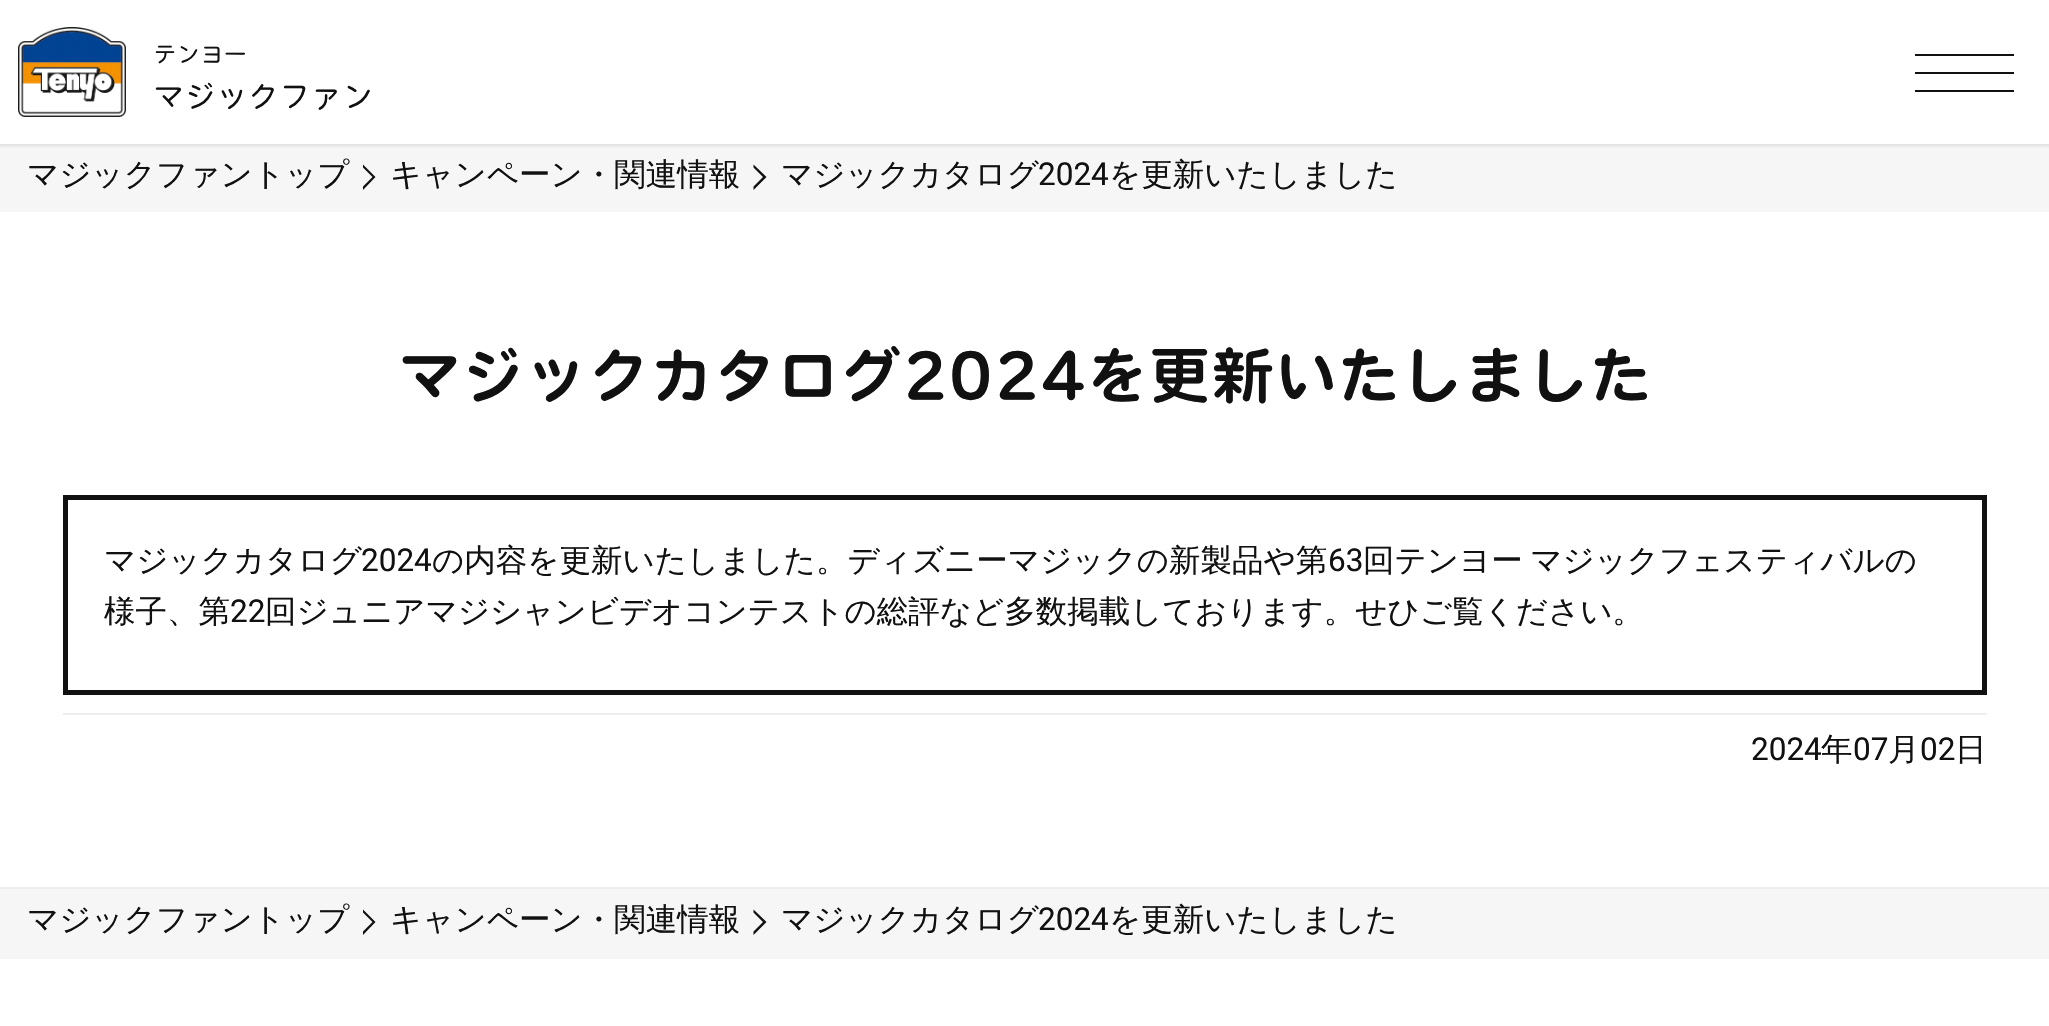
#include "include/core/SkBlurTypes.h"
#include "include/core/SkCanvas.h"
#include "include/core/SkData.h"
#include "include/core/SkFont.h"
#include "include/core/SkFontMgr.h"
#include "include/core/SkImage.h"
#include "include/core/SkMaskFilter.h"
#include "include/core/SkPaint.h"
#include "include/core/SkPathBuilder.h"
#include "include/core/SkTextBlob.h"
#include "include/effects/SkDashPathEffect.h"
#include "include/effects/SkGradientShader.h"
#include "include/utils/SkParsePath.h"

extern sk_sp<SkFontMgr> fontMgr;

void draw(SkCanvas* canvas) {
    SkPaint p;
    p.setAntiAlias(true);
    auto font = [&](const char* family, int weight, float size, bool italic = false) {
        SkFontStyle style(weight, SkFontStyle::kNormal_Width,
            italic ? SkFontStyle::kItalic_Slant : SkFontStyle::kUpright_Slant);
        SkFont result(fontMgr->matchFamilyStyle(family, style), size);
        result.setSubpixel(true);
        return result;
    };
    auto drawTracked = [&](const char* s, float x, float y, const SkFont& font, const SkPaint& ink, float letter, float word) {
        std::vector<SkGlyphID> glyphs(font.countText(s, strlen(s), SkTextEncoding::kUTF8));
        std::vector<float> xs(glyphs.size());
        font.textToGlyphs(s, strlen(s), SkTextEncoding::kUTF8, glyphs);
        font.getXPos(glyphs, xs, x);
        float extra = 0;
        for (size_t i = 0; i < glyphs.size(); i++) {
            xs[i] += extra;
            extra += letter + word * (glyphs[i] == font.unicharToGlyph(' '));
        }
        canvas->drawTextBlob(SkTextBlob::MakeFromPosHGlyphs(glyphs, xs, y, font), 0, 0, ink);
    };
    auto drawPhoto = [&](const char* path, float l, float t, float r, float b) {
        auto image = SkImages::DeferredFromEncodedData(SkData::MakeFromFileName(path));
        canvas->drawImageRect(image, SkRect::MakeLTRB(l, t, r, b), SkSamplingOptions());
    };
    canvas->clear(0xFFFFFFFF);
    p.setColor(0xFFF6F6F6);
    canvas->drawRect(SkRect::MakeLTRB(0, 144, 2049, 212), p);
    canvas->save();
    canvas->clipRect(SkRect::MakeLTRB(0, 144, 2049, 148));
    p.setColor(0x1A000000);
    p.setMaskFilter(SkMaskFilter::MakeBlur(kNormal_SkBlurStyle, 2));
    canvas->drawRect(SkRect::MakeLTRB(-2, -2, 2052, 146), p);
    p.setMaskFilter(nullptr);
    canvas->restore();
    drawPhoto("media/1.png", 18, 27, 126, 117);
    auto font1 = font("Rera", 100, 23.5f);
    p.setColor(0xFF111111);
    canvas->save();
    canvas->rotate(0.1f, 153, 63);
    canvas->drawString("テンヨー", 153, 63, font1, p);
    canvas->restore();
    auto font2 = font("Rera", 100, 31.5f);
    canvas->save();
    canvas->rotate(0.1f, 153, 108);
    canvas->drawString("マジックファン", 153, 108, font2, p);
    canvas->restore();
    {
        const struct { float l, t, r, b; SkColor color; } items[] = {
            {1915, 72, 2014, 74, 0xFF111111},
            {1915, 54, 2014, 56, 0xFF111111},
            {1915, 90, 2014, 92, 0xFF111111},
        };
        for (auto [l, t, r, b, color] : items) {
            p.setColor(color);
            canvas->drawRect(SkRect::MakeLTRB(l, t, r, b), p);
        }
    }
    auto font3 = font("WenQuanYi Zen Hei", 500, 31.5f);
    canvas->drawString("マジックファントップ", 27, 185, font3, p);
    canvas->drawPath(SkPathBuilder().moveTo(363, 164.5f).lineTo(375.5f, 177).lineTo(372.5f, 177).lineTo(363, 167.5f).close().moveTo(375.5f, 177).lineTo(363, 190).lineTo(363, 186.5f).lineTo(372.5f, 177).close().detach(), p);
    canvas->drawString("キャンペーン・関連情報", 390, 185, font3, p);
    canvas->drawPath(SkPathBuilder().moveTo(753.5f, 164.5f).lineTo(766.5f, 177).lineTo(763, 177).lineTo(753.5f, 167.5f).close().moveTo(766.5f, 177).lineTo(753.5f, 190).lineTo(753.5f, 186.5f).lineTo(763, 177).close().detach(), p);
    canvas->drawString("マジックカタログ", 781, 185, font3, p);
    auto font4 = font("Roboto", 400, 31.5f);
    canvas->drawString("2024", 1038, 185, font4, p);
    canvas->drawString("を更新いたしました", 1109, 185, font3, p);
    p.setColor(0xFFEEEEEE);
    canvas->drawRect(SkRect::MakeLTRB(0, 887, 2049, 889), p);
    auto font5 = font("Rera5", 100, 63);
    p.setColor(0xFF111111);
    canvas->drawString("マジックカタログ2024を更新いたしました", 398, 399, font5, p);
    p.setStyle(SkPaint::kStroke_Style);
    p.setStrokeWidth(5);
    canvas->drawRect(SkRect::MakeLTRB(65.5f, 497.5f, 1984.5f, 692.5f), p);
    p.setStyle(SkPaint::kFill_Style);
    canvas->drawString("マジックカタログ", 104, 571, font3, p);
    canvas->drawString("2024", 361, 571, font4, p);
    canvas->drawString("の内容を更新いたしました。ディズニーマジックの新製品や第", 432, 571, font3, p);
    canvas->drawString("63", 1328, 571, font4, p);
    drawTracked("回テンヨー マジックフェスティバルの", 1363, 571, font3, p, 0, -2);
    canvas->drawString("様子、第", 104, 622, font3, p);
    canvas->drawString("22", 230, 622, font4, p);
    canvas->drawString("回ジュニアマジシャンビデオコンテストの総評など多数掲載しております。せひご覧ください。", 265, 622, font3, p);
    p.setColor(0xFFEEEEEE);
    canvas->drawRect(SkRect::MakeLTRB(63, 713, 1987, 715), p);
    p.setColor(0xFF111111);
    canvas->drawString("2024", 1751, 760, font4, p);
    canvas->drawString("年", 1821, 760, font3, p);
    canvas->drawString("07", 1853, 760, font4, p);
    canvas->drawString("月", 1888, 760, font3, p);
    canvas->drawString("02", 1920, 760, font4, p);
    canvas->drawString("日", 1955, 760, font3, p);
    p.setColor(0xFFF6F6F6);
    canvas->drawRect(SkRect::MakeLTRB(0, 889, 2049, 959), p);
    p.setColor(0xFF111111);
    canvas->drawString("マジックファントップ", 27, 930, font3, p);
    canvas->drawPath(SkPathBuilder().moveTo(363, 909.5f).lineTo(375.5f, 922).lineTo(372.5f, 922).lineTo(363, 912.5f).close().moveTo(375.5f, 922).lineTo(363, 935).lineTo(363, 931.5f).lineTo(372.5f, 922).close().detach(), p);
    canvas->drawString("キャンペーン・関連情報", 390, 930, font3, p);
    canvas->drawPath(SkPathBuilder().moveTo(753.5f, 909.5f).lineTo(766.5f, 922).lineTo(763, 922).lineTo(753.5f, 912.5f).close().moveTo(766.5f, 922).lineTo(753.5f, 935).lineTo(753.5f, 931.5f).lineTo(763, 922).close().detach(), p);
    canvas->drawString("マジックカタログ", 781, 930, font3, p);
    canvas->drawString("2024", 1038, 930, font4, p);
    canvas->drawString("を更新いたしました", 1109, 930, font3, p);
}
